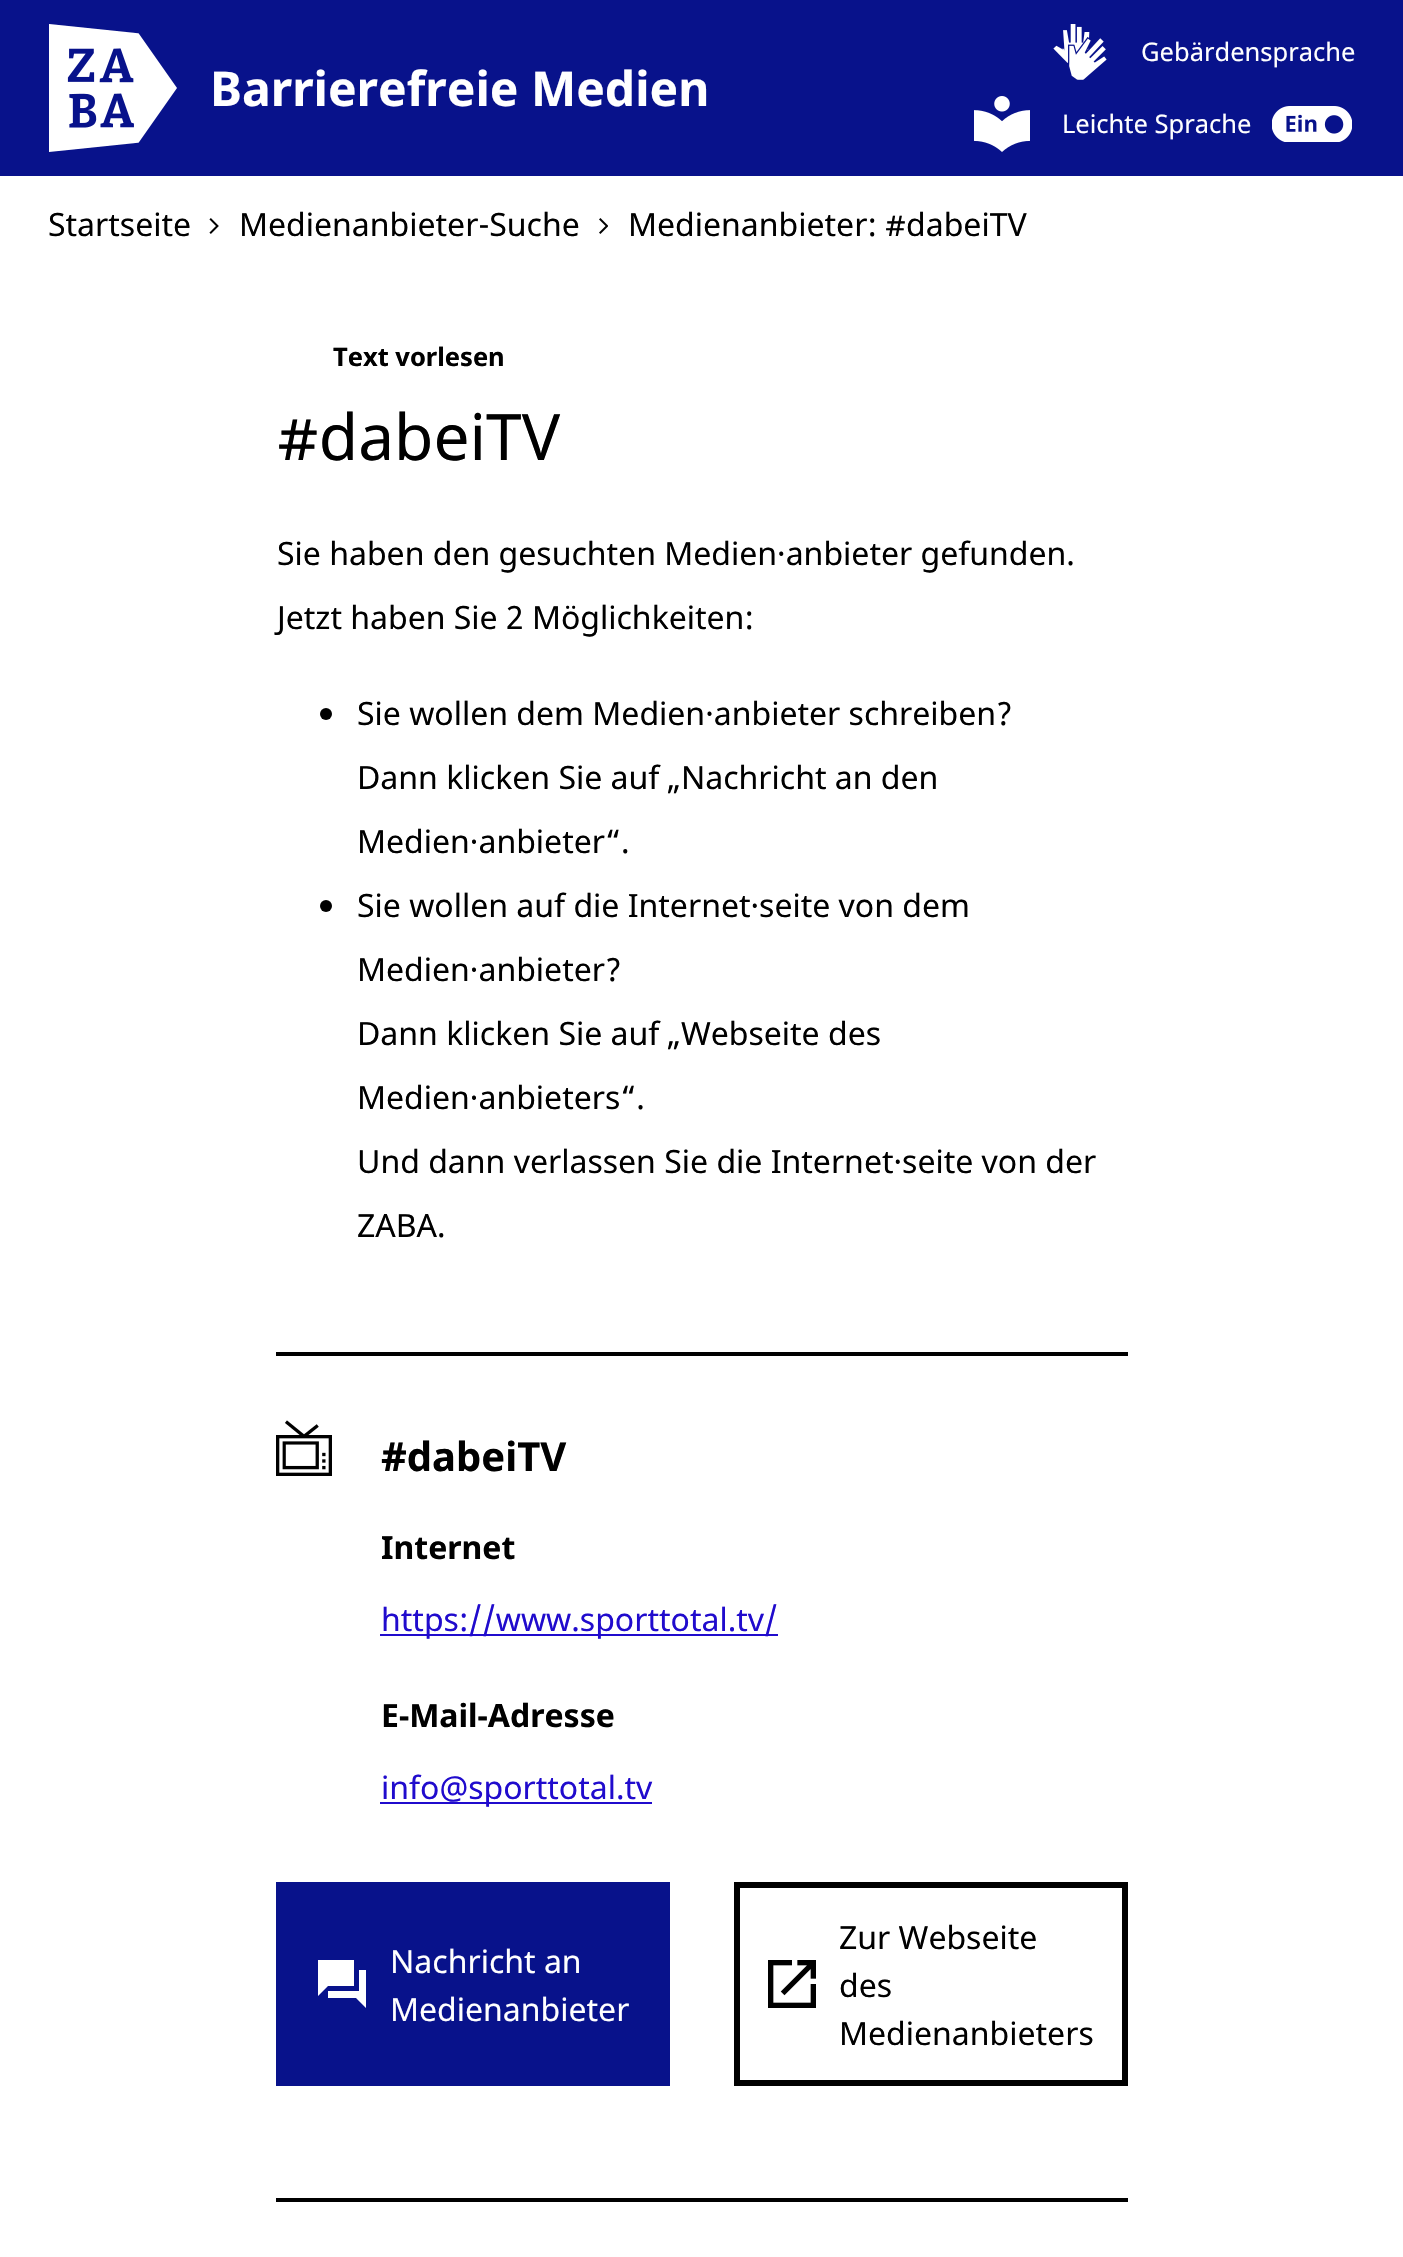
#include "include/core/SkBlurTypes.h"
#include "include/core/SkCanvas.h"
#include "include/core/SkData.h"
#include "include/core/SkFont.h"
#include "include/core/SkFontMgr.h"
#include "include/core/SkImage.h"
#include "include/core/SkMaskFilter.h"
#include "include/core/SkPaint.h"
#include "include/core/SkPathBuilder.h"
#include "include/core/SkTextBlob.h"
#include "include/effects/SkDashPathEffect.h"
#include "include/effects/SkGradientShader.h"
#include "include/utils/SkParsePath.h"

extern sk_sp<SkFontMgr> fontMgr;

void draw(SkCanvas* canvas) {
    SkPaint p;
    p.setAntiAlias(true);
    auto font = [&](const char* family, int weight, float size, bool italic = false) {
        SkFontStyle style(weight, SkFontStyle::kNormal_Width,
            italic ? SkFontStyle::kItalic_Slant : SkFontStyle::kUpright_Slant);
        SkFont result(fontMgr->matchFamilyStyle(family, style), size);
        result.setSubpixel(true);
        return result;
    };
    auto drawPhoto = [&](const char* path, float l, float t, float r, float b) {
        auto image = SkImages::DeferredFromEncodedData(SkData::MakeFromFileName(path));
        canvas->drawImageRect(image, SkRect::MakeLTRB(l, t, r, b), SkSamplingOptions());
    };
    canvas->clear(0xFFFFFFFF);
    p.setColor(0xFF08128B);
    canvas->drawRect(SkRect::MakeLTRB(0, 0, 1403, 176), p);
    drawPhoto("media/1.png", 1053, 24, 1107, 80);
    auto font1 = font("Noto Sans", 400, 25.5f);
    p.setColor(0xFFFFFFFF);
    canvas->drawString("Gebärdensprache", 1141, 61, font1, p);
    drawPhoto("media/2.png", 49, 24, 177, 152);
    auto font2 = font("Noto Sans", 700, 48);
    canvas->drawString("Barrierefreie Medien", 210, 106, font2, p);
    drawPhoto("media/3.png", 974, 96, 1030, 152);
    canvas->drawString("Leichte Sprache", 1062, 133, font1, p);
    drawPhoto("media/4.png", 1272, 106, 1352, 142);
    auto font3 = font("Noto Sans", 400, 32);
    p.setColor(0xFF000000);
    canvas->drawString("Startseite", 48, 236, font3, p);
    drawPhoto("media/5.png", 209, 218, 219, 234);
    canvas->drawString("Medienanbieter-Suche", 239, 236, font3, p);
    drawPhoto("media/6.png", 599, 218, 608, 234);
    canvas->drawString("Medienanbieter: #dabeiTV", 628, 236, font3, p);
    auto font4 = font("Noto Sans", 700, 25.5f);
    canvas->drawString("Text vorlesen", 333, 366, font4, p);
    auto font5 = font("Noto Sans", 400, 64);
    canvas->drawString("#dabeiTV", 277, 460, font5, p);
    canvas->drawString("Sie haben den gesuchten Medien·anbieter gefunden.", 277, 565, font3, p);
    canvas->drawString("Jetzt haben Sie 2 Möglichkeiten:", 277, 629, font3, p);
    canvas->drawCircle(326, 714, 6, p);
    {
        const struct { const char* s; float x, y; } items[] = {
            {"Sie wollen dem Medien·anbieter schreiben?", 357, 725},
            {"Dann klicken Sie auf „Nachricht an den", 357, 789},
            {"Medien·anbieter“.", 357, 853},
        };
        for (auto [s, x, y] : items) {
            canvas->drawString(s, x, y, font3, p);
        }
    }
    canvas->drawCircle(326, 906, 6, p);
    {
        const struct { const char* s; float x, y; } items[] = {
            {"Sie wollen auf die Internet·seite von dem", 357, 917},
            {"Medien·anbieter?", 357, 981},
            {"Dann klicken Sie auf „Webseite des", 357, 1045},
            {"Medien·anbieters“.", 357, 1109},
            {"Und dann verlassen Sie die Internet·seite von der", 357, 1173},
            {"ZABA.", 357, 1237},
        };
        for (auto [s, x, y] : items) {
            canvas->drawString(s, x, y, font3, p);
        }
    }
    canvas->drawRect(SkRect::MakeLTRB(276, 1352, 1128, 1356), p);
    drawPhoto("media/7.png", 276, 1420, 332, 1476);
    auto font6 = font("Noto Sans", 700, 40);
    canvas->drawString("#dabeiTV", 381, 1471, font6, p);
    auto font7 = font("Noto Sans", 700, 32);
    canvas->drawString("Internet", 381, 1559, font7, p);
    p.setColor(0xFF200BCD);
    canvas->drawRect(SkRect::MakeLTRB(380, 1634, 778, 1636), p);
    canvas->drawString("https://www.sporttotal.tv/", 381, 1631, font3, p);
    p.setColor(0xFF000000);
    canvas->drawString("E-Mail-Adresse", 381, 1727, font7, p);
    p.setColor(0xFF200BCD);
    canvas->drawRect(SkRect::MakeLTRB(380, 1802, 652, 1804), p);
    canvas->drawString("info@sporttotal.tv", 381, 1799, font3, p);
    p.setColor(0xFF08128B);
    canvas->drawRect(SkRect::MakeLTRB(276, 1882, 670, 2086), p);
    p.setColor(0xFFFFFFFF);
    canvas->drawPath(SkPathBuilder().moveTo(366, 1970).lineTo(359, 1970).lineTo(359, 1991).lineTo(328, 1991).lineTo(328, 1998).lineTo(356, 1998).lineTo(366, 2008).close().moveTo(354, 1986).lineTo(354, 1960).lineTo(318, 1960).lineTo(318, 1996).lineTo(328, 1986).close().detach(), p);
    canvas->drawString("Nachricht an", 390, 1973, font3, p);
    canvas->drawString("Medienanbieter", 390, 2021, font3, p);
    p.setStyle(SkPaint::kStroke_Style);
    p.setStrokeWidth(6);
    p.setColor(0xFF000000);
    canvas->drawRect(SkRect::MakeLTRB(737, 1885, 1125, 2083), p);
    drawPhoto("media/8.png", 768, 1960, 816, 2008);
    p.setStyle(SkPaint::kFill_Style);
    {
        const struct { const char* s; float x, y; } items[] = {
            {"Zur Webseite", 839, 1949},
            {"des", 839, 1997},
            {"Medienanbieters", 839, 2045},
        };
        for (auto [s, x, y] : items) {
            canvas->drawString(s, x, y, font3, p);
        }
    }
    canvas->drawRect(SkRect::MakeLTRB(276, 2198, 1128, 2202), p);
}
